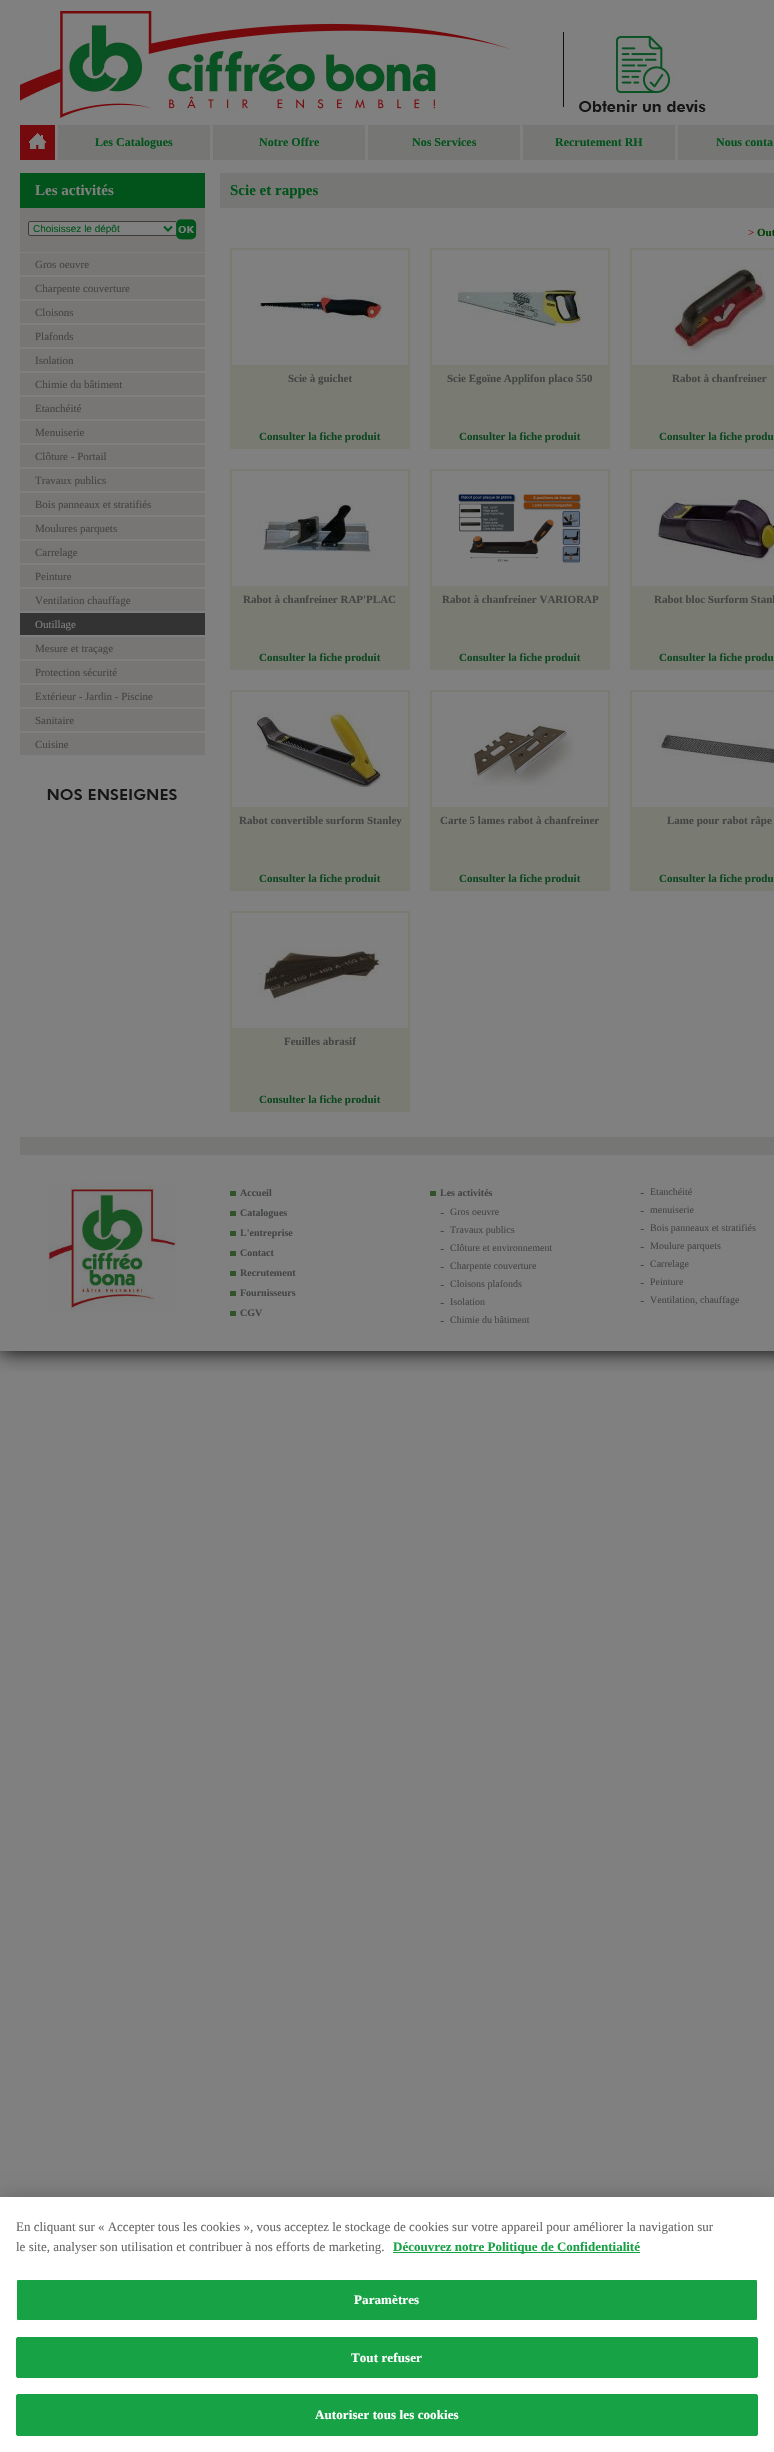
#include "include/core/SkBlurTypes.h"
#include "include/core/SkCanvas.h"
#include "include/core/SkData.h"
#include "include/core/SkFont.h"
#include "include/core/SkFontMgr.h"
#include "include/core/SkImage.h"
#include "include/core/SkMaskFilter.h"
#include "include/core/SkPaint.h"
#include "include/core/SkPathBuilder.h"
#include "include/core/SkTextBlob.h"
#include "include/effects/SkDashPathEffect.h"
#include "include/effects/SkGradientShader.h"
#include "include/utils/SkParsePath.h"

extern sk_sp<SkFontMgr> fontMgr;

void draw(SkCanvas* canvas) {
    SkPaint p;
    p.setAntiAlias(true);
    auto font = [&](const char* family, int weight, float size, bool italic = false) {
        SkFontStyle style(weight, SkFontStyle::kNormal_Width,
            italic ? SkFontStyle::kItalic_Slant : SkFontStyle::kUpright_Slant);
        SkFont result(fontMgr->matchFamilyStyle(family, style), size);
        result.setSubpixel(true);
        return result;
    };
    auto drawTracked = [&](const char* s, float x, float y, const SkFont& font, const SkPaint& ink, float letter, float word) {
        std::vector<SkGlyphID> glyphs(font.countText(s, strlen(s), SkTextEncoding::kUTF8));
        std::vector<float> xs(glyphs.size());
        font.textToGlyphs(s, strlen(s), SkTextEncoding::kUTF8, glyphs);
        font.getXPos(glyphs, xs, x);
        float extra = 0;
        for (size_t i = 0; i < glyphs.size(); i++) {
            xs[i] += extra;
            extra += letter + word * (glyphs[i] == font.unicharToGlyph(' '));
        }
        canvas->drawTextBlob(SkTextBlob::MakeFromPosHGlyphs(glyphs, xs, y, font), 0, 0, ink);
    };
    auto drawPhoto = [&](const char* path, float l, float t, float r, float b) {
        auto image = SkImages::DeferredFromEncodedData(SkData::MakeFromFileName(path));
        canvas->drawImageRect(image, SkRect::MakeLTRB(l, t, r, b), SkSamplingOptions());
    };
    canvas->clear(0xFF808080);
    canvas->save();
    canvas->clipRect(SkRect::MakeLTRB(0, 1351, 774, 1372));
    p.setColor(0xFF000000);
    p.setMaskFilter(SkMaskFilter::MakeBlur(kNormal_SkBlurStyle, 10));
    canvas->drawRect(SkRect::MakeLTRB(0, 0, 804, 1351), p);
    p.setMaskFilter(nullptr);
    canvas->restore();
    drawPhoto("media/1.png", 20, 11, 509, 118);
    drawPhoto("media/2.png", 563, 32, 706, 112);
    drawPhoto("media/3.png", 20, 125, 55, 160);
    drawPhoto("media/4.png", 58, 125, 210, 160);
    auto font1 = font("Liberation Serif", 700, 12);
    p.setColor(0xFF02531B);
    canvas->drawString("Les Catalogues", 95, 146, font1, p);
    drawPhoto("media/4.png", 213, 125, 365, 160);
    canvas->drawString("Notre Offre", 259, 146, font1, p);
    drawPhoto("media/4.png", 368, 125, 520, 160);
    canvas->drawString("Nos Services", 412, 146, font1, p);
    drawPhoto("media/4.png", 523, 125, 675, 160);
    canvas->drawString("Recrutement RH", 555, 146, font1, p);
    drawPhoto("media/5.png", 678, 125, 774, 160);
    canvas->drawString("Nous conta", 716, 146, font1, p);
    canvas->drawRect(SkRect::MakeLTRB(20, 173, 205, 208), p);
    auto font2 = font("Liberation Serif", 700, 15);
    p.setColor(0xFF808080);
    canvas->drawString("Les activités", 35, 195, font2, p);
    p.setColor(0xFF777674);
    canvas->drawRect(SkRect::MakeLTRB(20, 208, 205, 252), p);
    p.setColor(0xFF808080);
    canvas->drawRoundRect(SkRect::MakeLTRB(28.5f, 221.5f, 176.5f, 235.5f), 1.5f, 1.5f, p);
    p.setStyle(SkPaint::kStroke_Style);
    p.setStrokeWidth(1);
    p.setColor(0xFF3B3B3B);
    canvas->drawRoundRect(SkRect::MakeLTRB(28.5f, 221.5f, 176.5f, 235.5f), 1.5f, 1.5f, p);
    p.setStrokeWidth(2);
    p.setColor(0xFF02531B);
    canvas->drawPath(SkPathBuilder().moveTo(164, 226.5f).lineTo(168, 230.5f).lineTo(172, 226.5f).detach(), p);
    auto font3 = font("Liberation Sans", 400, 10);
    p.setStyle(SkPaint::kFill_Style);
    canvas->drawString("Choisissez le dépôt", 33, 232, font3, p);
    drawPhoto("media/6.png", 176, 219, 197, 240);
    p.setColor(0xFF777674);
    canvas->drawRect(SkRect::MakeLTRB(20, 253, 205, 275), p);
    auto font4 = font("Liberation Serif", 400, 11);
    p.setColor(0xFF434444);
    canvas->drawString("Gros oeuvre", 35, 268, font4, p);
    p.setColor(0xFF777674);
    canvas->drawRect(SkRect::MakeLTRB(20, 277, 205, 299), p);
    p.setColor(0xFF434444);
    canvas->drawString("Charpente couverture", 35, 292, font4, p);
    p.setColor(0xFF777674);
    canvas->drawRect(SkRect::MakeLTRB(20, 301, 205, 323), p);
    p.setColor(0xFF434444);
    canvas->drawString("Cloisons", 35, 316, font4, p);
    p.setColor(0xFF777674);
    canvas->drawRect(SkRect::MakeLTRB(20, 325, 205, 347), p);
    p.setColor(0xFF434444);
    canvas->drawString("Plafonds", 35, 340, font4, p);
    p.setColor(0xFF777674);
    canvas->drawRect(SkRect::MakeLTRB(20, 349, 205, 371), p);
    p.setColor(0xFF434444);
    canvas->drawString("Isolation", 35, 364, font4, p);
    p.setColor(0xFF777674);
    canvas->drawRect(SkRect::MakeLTRB(20, 373, 205, 395), p);
    p.setColor(0xFF434444);
    canvas->drawString("Chimie du bâtiment", 35, 388, font4, p);
    p.setColor(0xFF777674);
    canvas->drawRect(SkRect::MakeLTRB(20, 397, 205, 419), p);
    p.setColor(0xFF434444);
    canvas->drawString("Etanchéité", 35, 412, font4, p);
    p.setColor(0xFF777674);
    canvas->drawRect(SkRect::MakeLTRB(20, 421, 205, 443), p);
    p.setColor(0xFF434444);
    canvas->drawString("Menuiserie", 35, 436, font4, p);
    p.setColor(0xFF777674);
    canvas->drawRect(SkRect::MakeLTRB(20, 445, 205, 467), p);
    p.setColor(0xFF434444);
    canvas->drawString("Clôture - Portail", 35, 460, font4, p);
    p.setColor(0xFF777674);
    canvas->drawRect(SkRect::MakeLTRB(20, 469, 205, 491), p);
    p.setColor(0xFF434444);
    canvas->drawString("Travaux publics", 35, 484, font4, p);
    p.setColor(0xFF777674);
    canvas->drawRect(SkRect::MakeLTRB(20, 493, 205, 515), p);
    p.setColor(0xFF434444);
    canvas->drawString("Bois panneaux et stratifiés", 35, 508, font4, p);
    p.setColor(0xFF777674);
    canvas->drawRect(SkRect::MakeLTRB(20, 517, 205, 539), p);
    p.setColor(0xFF434444);
    canvas->drawString("Moulures parquets", 35, 532, font4, p);
    p.setColor(0xFF777674);
    canvas->drawRect(SkRect::MakeLTRB(20, 541, 205, 563), p);
    p.setColor(0xFF434444);
    canvas->drawString("Carrelage", 35, 556, font4, p);
    p.setColor(0xFF777674);
    canvas->drawRect(SkRect::MakeLTRB(20, 565, 205, 587), p);
    p.setColor(0xFF434444);
    canvas->drawString("Peinture", 35, 580, font4, p);
    p.setColor(0xFF777674);
    canvas->drawRect(SkRect::MakeLTRB(20, 589, 205, 611), p);
    p.setColor(0xFF434444);
    canvas->drawString("Ventilation chauffage", 35, 604, font4, p);
    p.setColor(0xFF333333);
    canvas->drawRect(SkRect::MakeLTRB(20, 613, 205, 635), p);
    p.setColor(0xFF808080);
    canvas->drawString("Outillage", 35, 628, font4, p);
    p.setColor(0xFF777674);
    canvas->drawRect(SkRect::MakeLTRB(20, 637, 205, 659), p);
    p.setColor(0xFF434444);
    canvas->drawString("Mesure et traçage", 35, 652, font4, p);
    p.setColor(0xFF777674);
    canvas->drawRect(SkRect::MakeLTRB(20, 661, 205, 683), p);
    p.setColor(0xFF434444);
    canvas->drawString("Protection sécurité", 35, 676, font4, p);
    p.setColor(0xFF777674);
    canvas->drawRect(SkRect::MakeLTRB(20, 685, 205, 707), p);
    p.setColor(0xFF434444);
    canvas->drawString("Extérieur - Jardin - Piscine", 35, 700, font4, p);
    p.setColor(0xFF777674);
    canvas->drawRect(SkRect::MakeLTRB(20, 709, 205, 731), p);
    p.setColor(0xFF434444);
    canvas->drawString("Sanitaire", 35, 724, font4, p);
    p.setColor(0xFF777674);
    canvas->drawRect(SkRect::MakeLTRB(20, 733, 205, 755), p);
    p.setColor(0xFF434444);
    canvas->drawString("Cuisine", 35, 748, font4, p);
    drawPhoto("media/7.png", 47, 789, 177, 800);
    p.setColor(0xFF767674);
    canvas->drawRect(SkRect::MakeLTRB(220, 173, 774, 208), p);
    p.setColor(0xFF02531B);
    canvas->drawString("Scie et rappes", 230, 195, font2, p);
    p.setColor(0xFF800000);
    canvas->drawString(">", 748, 236, font4, p);
    auto font5 = font("Liberation Serif", 700, 11);
    p.setColor(0xFF004000);
    canvas->drawString("Out", 757, 236, font5, p);
    {
        const struct { float l, t, r, b; SkColor color; } items[] = {
            {232, 250, 410, 449, 0xFF797B72},
            {230, 248, 410, 250, 0xFF797B72},
            {230, 248, 232, 449, 0xFF797B72},
            {232, 250, 408, 365, 0xFF808080},
        };
        for (auto [l, t, r, b, color] : items) {
            p.setColor(color);
            canvas->drawRect(SkRect::MakeLTRB(l, t, r, b), p);
        }
    }
    drawPhoto("media/8.png", 257, 295, 382, 320);
    p.setColor(0xFF434444);
    canvas->drawString("Scie à guichet", 288, 382, font5, p);
    p.setColor(0xFF0E4621);
    canvas->drawString("Consulter la fiche produit", 259, 440, font5, p);
    {
        const struct { float l, t, r, b; SkColor color; } items[] = {
            {432, 250, 610, 449, 0xFF797B72},
            {430, 248, 610, 250, 0xFF797B72},
            {430, 248, 432, 449, 0xFF797B72},
            {432, 250, 608, 365, 0xFF808080},
        };
        for (auto [l, t, r, b, color] : items) {
            p.setColor(color);
            canvas->drawRect(SkRect::MakeLTRB(l, t, r, b), p);
        }
    }
    drawPhoto("media/9.png", 457, 289, 582, 327);
    p.setColor(0xFF434444);
    canvas->drawString("Scie Egoïne Applifon placo 550", 447, 382, font5, p);
    p.setColor(0xFF0E4621);
    canvas->drawString("Consulter la fiche produit", 459, 440, font5, p);
    {
        const struct { float l, t, r, b; SkColor color; } items[] = {
            {632, 365, 774, 449, 0xFF797B72},
            {630, 248, 774, 250, 0xFF797B72},
            {630, 248, 632, 449, 0xFF797B72},
        };
        for (auto [l, t, r, b, color] : items) {
            p.setColor(color);
            canvas->drawRect(SkRect::MakeLTRB(l, t, r, b), p);
        }
    }
    drawPhoto("media/10.png", 673, 267, 766, 354);
    p.setColor(0xFF434444);
    canvas->drawString("Rabot à chanfreiner", 672, 382, font5, p);
    p.setColor(0xFF0E4621);
    canvas->drawString("Consulter la fiche produ", 659, 440, font5, p);
    {
        const struct { float l, t, r, b; SkColor color; } items[] = {
            {232, 471, 410, 670, 0xFF797B72},
            {230, 469, 410, 471, 0xFF797B72},
            {230, 469, 232, 670, 0xFF797B72},
            {232, 471, 408, 586, 0xFF808080},
        };
        for (auto [l, t, r, b, color] : items) {
            p.setColor(color);
            canvas->drawRect(SkRect::MakeLTRB(l, t, r, b), p);
        }
    }
    drawPhoto("media/11.png", 259, 503, 376, 559);
    p.setColor(0xFF434444);
    canvas->drawString("Rabot à chanfreiner RAP'PLAC", 243, 603, font5, p);
    p.setColor(0xFF0E4621);
    canvas->drawString("Consulter la fiche produit", 259, 661, font5, p);
    {
        const struct { float l, t, r, b; SkColor color; } items[] = {
            {432, 471, 610, 670, 0xFF797B72},
            {430, 469, 610, 471, 0xFF797B72},
            {430, 469, 432, 670, 0xFF797B72},
            {432, 471, 608, 586, 0xFF808080},
        };
        for (auto [l, t, r, b, color] : items) {
            p.setColor(color);
            canvas->drawRect(SkRect::MakeLTRB(l, t, r, b), p);
        }
    }
    drawPhoto("media/12.png", 458, 494, 581, 563);
    p.setColor(0xFF434444);
    canvas->drawString("Rabot à chanfreiner VARIORAP", 442, 603, font5, p);
    p.setColor(0xFF0E4621);
    canvas->drawString("Consulter la fiche produit", 459, 661, font5, p);
    {
        const struct { float l, t, r, b; SkColor color; } items[] = {
            {632, 586, 774, 670, 0xFF797B72},
            {630, 469, 774, 471, 0xFF797B72},
            {630, 469, 632, 670, 0xFF797B72},
        };
        for (auto [l, t, r, b, color] : items) {
            p.setColor(color);
            canvas->drawRect(SkRect::MakeLTRB(l, t, r, b), p);
        }
    }
    drawPhoto("media/13.png", 657, 496, 774, 562);
    p.setColor(0xFF434444);
    canvas->drawString("Rabot bloc Surform Stanl", 654, 603, font5, p);
    p.setColor(0xFF0E4621);
    canvas->drawString("Consulter la fiche produ", 659, 661, font5, p);
    {
        const struct { float l, t, r, b; SkColor color; } items[] = {
            {232, 692, 410, 891, 0xFF797B72},
            {230, 690, 410, 692, 0xFF797B72},
            {230, 690, 232, 891, 0xFF797B72},
            {232, 692, 408, 807, 0xFF808080},
        };
        for (auto [l, t, r, b, color] : items) {
            p.setColor(color);
            canvas->drawRect(SkRect::MakeLTRB(l, t, r, b), p);
        }
    }
    drawPhoto("media/14.png", 257, 712, 382, 787);
    p.setColor(0xFF434444);
    canvas->drawString("Rabot convertible surform Stanley", 239, 824, font5, p);
    p.setColor(0xFF0E4621);
    canvas->drawString("Consulter la fiche produit", 259, 882, font5, p);
    {
        const struct { float l, t, r, b; SkColor color; } items[] = {
            {432, 692, 610, 891, 0xFF797B72},
            {430, 690, 610, 692, 0xFF797B72},
            {430, 690, 432, 891, 0xFF797B72},
            {432, 692, 608, 807, 0xFF808080},
        };
        for (auto [l, t, r, b, color] : items) {
            p.setColor(color);
            canvas->drawRect(SkRect::MakeLTRB(l, t, r, b), p);
        }
    }
    drawPhoto("media/15.png", 471, 724, 574, 786);
    p.setColor(0xFF434444);
    canvas->drawString("Carte 5 lames rabot à chanfreiner", 440, 824, font5, p);
    p.setColor(0xFF0E4621);
    canvas->drawString("Consulter la fiche produit", 459, 882, font5, p);
    {
        const struct { float l, t, r, b; SkColor color; } items[] = {
            {632, 807, 774, 891, 0xFF797B72},
            {630, 690, 774, 692, 0xFF797B72},
            {630, 690, 632, 891, 0xFF797B72},
        };
        for (auto [l, t, r, b, color] : items) {
            p.setColor(color);
            canvas->drawRect(SkRect::MakeLTRB(l, t, r, b), p);
        }
    }
    drawPhoto("media/16.png", 657, 732, 774, 764);
    p.setColor(0xFF434444);
    canvas->drawString("Lame pour rabot râpe", 667, 824, font5, p);
    p.setColor(0xFF0E4621);
    canvas->drawString("Consulter la fiche produ", 659, 882, font5, p);
    {
        const struct { float l, t, r, b; SkColor color; } items[] = {
            {232, 913, 410, 1112, 0xFF797B72},
            {230, 911, 410, 913, 0xFF797B72},
            {230, 911, 232, 1112, 0xFF797B72},
            {232, 913, 408, 1028, 0xFF808080},
        };
        for (auto [l, t, r, b, color] : items) {
            p.setColor(color);
            canvas->drawRect(SkRect::MakeLTRB(l, t, r, b), p);
        }
    }
    drawPhoto("media/17.png", 257, 949, 382, 1005);
    p.setColor(0xFF434444);
    canvas->drawString("Feuilles abrasif", 284, 1045, font5, p);
    p.setColor(0xFF0E4621);
    canvas->drawString("Consulter la fiche produit", 259, 1103, font5, p);
    p.setColor(0xFF767674);
    canvas->drawRect(SkRect::MakeLTRB(20, 1137, 774, 1155), p);
    drawPhoto("media/18.png", 48, 1183, 176, 1312);
    p.setColor(0xFF325227);
    canvas->drawRect(SkRect::MakeLTRB(230, 1191, 236, 1196), p);
    auto font6 = font("Liberation Serif", 700, 10);
    p.setColor(0xFF434444);
    canvas->drawString("Accueil", 240, 1196, font6, p);
    p.setColor(0xFF325227);
    canvas->drawRect(SkRect::MakeLTRB(230, 1211, 236, 1216), p);
    p.setColor(0xFF434444);
    canvas->drawString("Catalogues", 240, 1216, font6, p);
    p.setColor(0xFF325227);
    canvas->drawRect(SkRect::MakeLTRB(230, 1231, 236, 1236), p);
    p.setColor(0xFF434444);
    canvas->drawString("L'entreprise", 240, 1236, font6, p);
    p.setColor(0xFF325227);
    canvas->drawRect(SkRect::MakeLTRB(230, 1251, 236, 1256), p);
    p.setColor(0xFF434444);
    canvas->drawString("Contact", 240, 1256, font6, p);
    p.setColor(0xFF325227);
    canvas->drawRect(SkRect::MakeLTRB(230, 1271, 236, 1276), p);
    p.setColor(0xFF434444);
    canvas->drawString("Recrutement", 240, 1276, font6, p);
    p.setColor(0xFF325227);
    canvas->drawRect(SkRect::MakeLTRB(230, 1291, 236, 1296), p);
    p.setColor(0xFF434444);
    canvas->drawString("Fournisseurs", 240, 1296, font6, p);
    p.setColor(0xFF325227);
    canvas->drawRect(SkRect::MakeLTRB(230, 1311, 236, 1316), p);
    p.setColor(0xFF434444);
    canvas->drawString("CGV", 240, 1316, font6, p);
    p.setColor(0xFF325227);
    canvas->drawRect(SkRect::MakeLTRB(430, 1191, 436, 1196), p);
    p.setColor(0xFF434444);
    canvas->drawString("Les activités", 440, 1196, font6, p);
    drawPhoto("media/19.png", 440, 1213, 444, 1214);
    auto font7 = font("Liberation Serif", 400, 10);
    canvas->drawString("Gros oeuvre", 450, 1215, font7, p);
    drawPhoto("media/19.png", 440, 1231, 444, 1232);
    canvas->drawString("Travaux publics", 450, 1233, font7, p);
    drawPhoto("media/19.png", 440, 1249, 444, 1250);
    canvas->drawString("Clôture et environnement", 450, 1251, font7, p);
    drawPhoto("media/19.png", 440, 1267, 444, 1268);
    canvas->drawString("Charpente couverture", 450, 1269, font7, p);
    drawPhoto("media/19.png", 440, 1285, 444, 1286);
    canvas->drawString("Cloisons plafonds", 450, 1287, font7, p);
    drawPhoto("media/19.png", 440, 1303, 444, 1304);
    canvas->drawString("Isolation", 450, 1305, font7, p);
    drawPhoto("media/19.png", 440, 1321, 444, 1322);
    canvas->drawString("Chimie du bâtiment", 450, 1323, font7, p);
    drawPhoto("media/19.png", 640, 1193, 644, 1194);
    canvas->drawString("Etanchéité", 650, 1195, font7, p);
    drawPhoto("media/19.png", 640, 1211, 644, 1212);
    canvas->drawString("menuiserie", 650, 1213, font7, p);
    drawPhoto("media/19.png", 640, 1229, 644, 1230);
    canvas->drawString("Bois panneaux et stratifiés", 650, 1231, font7, p);
    drawPhoto("media/19.png", 640, 1247, 644, 1248);
    canvas->drawString("Moulure parquets", 650, 1249, font7, p);
    drawPhoto("media/19.png", 640, 1265, 644, 1266);
    canvas->drawString("Carrelage", 650, 1267, font7, p);
    drawPhoto("media/19.png", 640, 1283, 644, 1284);
    canvas->drawString("Peinture", 650, 1285, font7, p);
    drawPhoto("media/19.png", 640, 1301, 644, 1302);
    canvas->drawString("Ventilation, chauffage", 650, 1303, font7, p);
    p.setColor(0x33000000);
    p.setMaskFilter(SkMaskFilter::MakeBlur(kNormal_SkBlurStyle, 9));
    canvas->drawRect(SkRect::MakeLTRB(0, 2197, 774, 2452), p);
    p.setMaskFilter(nullptr);
    p.setColor(0xFFFFFFFF);
    canvas->drawRect(SkRect::MakeLTRB(0, 2197, 774, 2452), p);
    auto font8 = font("Liberation Serif", 400, 13);
    p.setColor(0xFF696969);
    canvas->drawString("En cliquant sur « Accepter tous les cookies », vous acceptez le stockage de cookies sur votre appareil pour améliorer la navigation sur", 16, 2231, font8, p);
    canvas->drawString("le site, analyser son utilisation et contribuer à nos efforts de marketing.", 16, 2251, font8, p);
    p.setColor(0xFF17A246);
    canvas->drawRect(SkRect::MakeLTRB(393, 2252, 640, 2253), p);
    auto font9 = font("Liberation Serif", 700, 13);
    canvas->drawString("Découvrez notre Politique de Confidentialité", 393, 2251, font9, p);
    canvas->drawRoundRect(SkRect::MakeLTRB(16.5f, 2279.5f, 757.5f, 2320.5f), 1.5f, 1.5f, p);
    p.setStyle(SkPaint::kStroke_Style);
    p.setStrokeWidth(1);
    p.setColor(0xFFFFFFFF);
    canvas->drawRoundRect(SkRect::MakeLTRB(16.5f, 2279.5f, 757.5f, 2320.5f), 1.5f, 1.5f, p);
    p.setStyle(SkPaint::kFill_Style);
    drawTracked("Paramètres", 354, 2304, font9, p, 0.1f, 0);
    p.setColor(0xFF17A246);
    canvas->drawRoundRect(SkRect::MakeLTRB(16.5f, 2337.5f, 757.5f, 2377.5f), 1.5f, 1.5f, p);
    p.setStyle(SkPaint::kStroke_Style);
    canvas->drawRoundRect(SkRect::MakeLTRB(16.5f, 2337.5f, 757.5f, 2377.5f), 1.5f, 1.5f, p);
    p.setStyle(SkPaint::kFill_Style);
    p.setColor(0xFFFFFFFF);
    drawTracked("Tout refuser", 351, 2362, font9, p, 0.1f, 0);
    p.setColor(0xFF17A246);
    canvas->drawRoundRect(SkRect::MakeLTRB(16.5f, 2394.5f, 757.5f, 2435.5f), 1.5f, 1.5f, p);
    p.setStyle(SkPaint::kStroke_Style);
    canvas->drawRoundRect(SkRect::MakeLTRB(16.5f, 2394.5f, 757.5f, 2435.5f), 1.5f, 1.5f, p);
    p.setStyle(SkPaint::kFill_Style);
    p.setColor(0xFFFFFFFF);
    drawTracked("Autoriser tous les cookies", 315, 2419, font9, p, 0.1f, 0);
}
